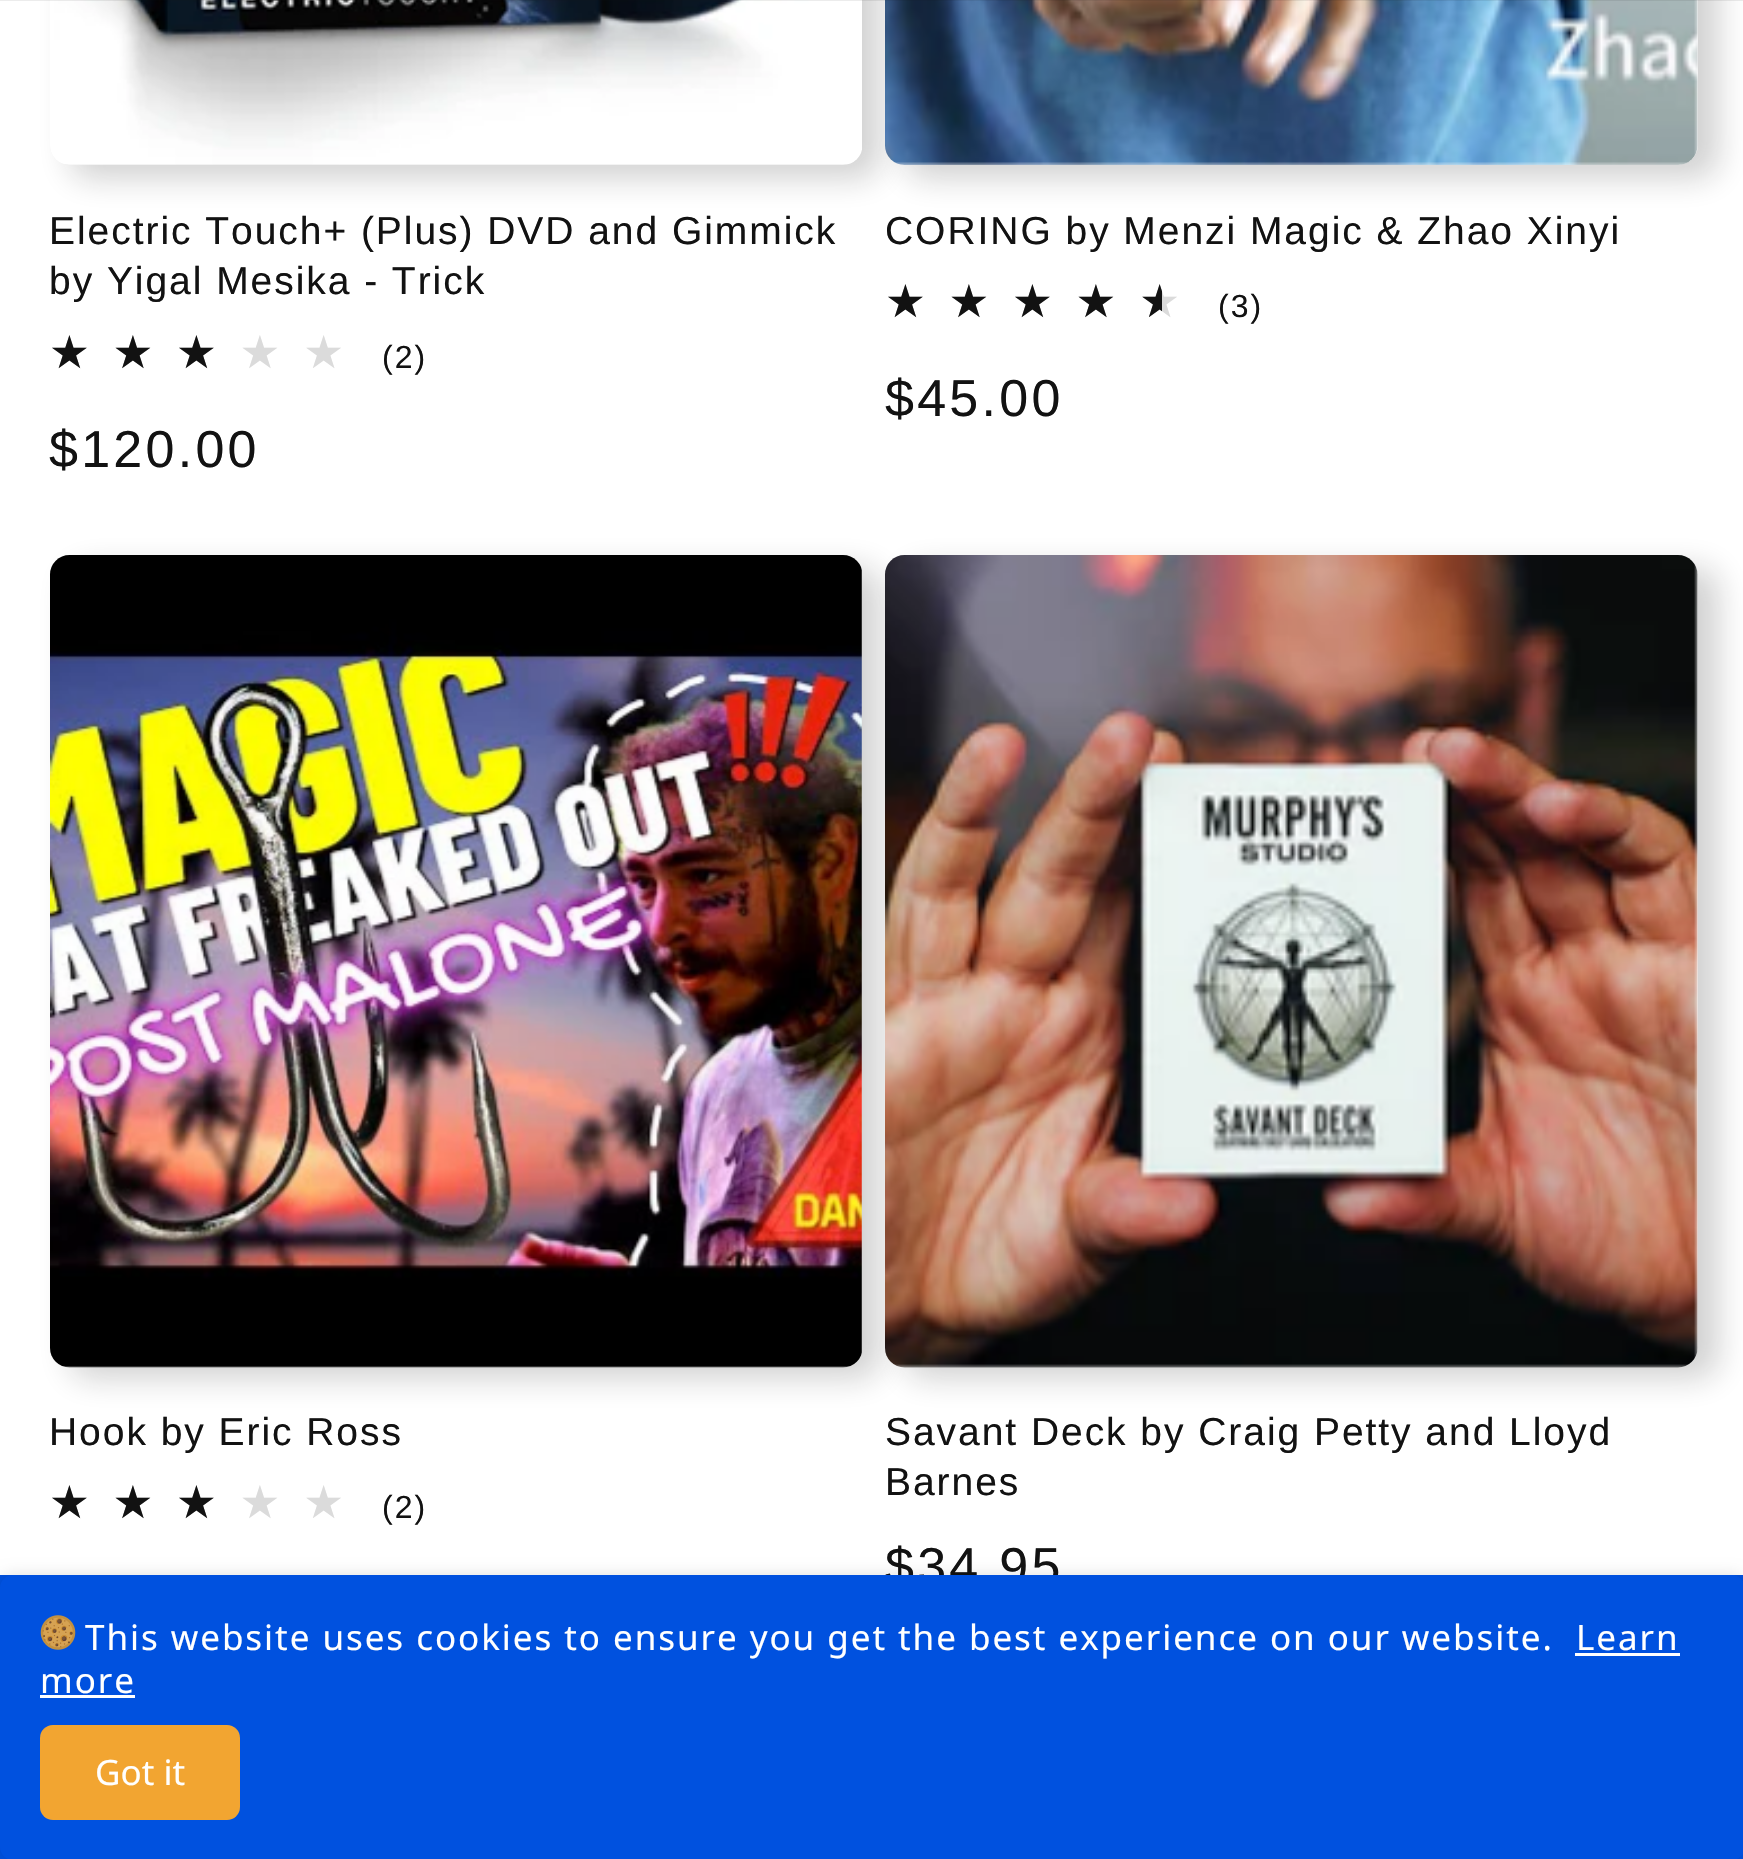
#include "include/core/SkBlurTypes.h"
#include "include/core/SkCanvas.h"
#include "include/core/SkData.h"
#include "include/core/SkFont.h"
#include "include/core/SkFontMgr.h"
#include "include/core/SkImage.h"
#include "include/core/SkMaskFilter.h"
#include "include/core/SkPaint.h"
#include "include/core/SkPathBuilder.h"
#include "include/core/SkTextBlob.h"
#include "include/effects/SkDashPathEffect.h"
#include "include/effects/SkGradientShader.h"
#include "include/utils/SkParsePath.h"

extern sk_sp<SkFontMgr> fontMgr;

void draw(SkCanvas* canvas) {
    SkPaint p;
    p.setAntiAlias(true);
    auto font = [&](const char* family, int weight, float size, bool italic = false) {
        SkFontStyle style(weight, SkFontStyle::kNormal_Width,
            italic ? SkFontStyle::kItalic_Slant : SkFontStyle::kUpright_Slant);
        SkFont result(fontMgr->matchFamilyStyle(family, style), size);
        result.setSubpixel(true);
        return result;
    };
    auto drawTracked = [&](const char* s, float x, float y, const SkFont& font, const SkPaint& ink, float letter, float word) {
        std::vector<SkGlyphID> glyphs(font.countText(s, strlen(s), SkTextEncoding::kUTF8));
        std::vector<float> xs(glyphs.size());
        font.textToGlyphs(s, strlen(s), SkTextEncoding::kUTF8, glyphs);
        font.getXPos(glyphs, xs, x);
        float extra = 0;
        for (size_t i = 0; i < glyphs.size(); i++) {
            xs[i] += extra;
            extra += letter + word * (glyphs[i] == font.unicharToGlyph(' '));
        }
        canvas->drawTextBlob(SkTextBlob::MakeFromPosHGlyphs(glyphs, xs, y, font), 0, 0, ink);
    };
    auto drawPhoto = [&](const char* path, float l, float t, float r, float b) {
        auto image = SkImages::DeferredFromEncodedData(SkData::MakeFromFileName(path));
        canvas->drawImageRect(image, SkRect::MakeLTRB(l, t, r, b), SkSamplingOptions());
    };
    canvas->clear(0xFFFFFFFF);
    p.setColor(0xFFF3F3F3);
    canvas->drawRoundRect(SkRect::MakeLTRB(50, -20, 860, 165), 20, 20, p);
    p.setColor(0x33121212);
    p.setMaskFilter(SkMaskFilter::MakeBlur(kNormal_SkBlurStyle, 16));
    canvas->drawRoundRect(SkRect::MakeLTRB(70, -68, 880, 178), 20, 20, p);
    p.setMaskFilter(nullptr);
    drawPhoto("media/1.png", 50, 0, 862, 165);
    p.setColor(0xFFF3F3F3);
    canvas->drawRoundRect(SkRect::MakeLTRB(885, -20, 1698, 165), 20, 20, p);
    canvas->save();
    canvas->clipPath(SkPathBuilder(SkPathFillType::kEvenOdd).moveTo(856, 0).lineTo(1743, 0).lineTo(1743, 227).lineTo(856, 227).close().moveTo(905, -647).lineTo(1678, -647).cubicTo(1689, -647, 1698, -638, 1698, -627).lineTo(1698, 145).cubicTo(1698, 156, 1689, 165, 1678, 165).lineTo(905, 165).cubicTo(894, 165, 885, 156, 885, 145).lineTo(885, -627).cubicTo(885, -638, 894, -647, 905, -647).close().detach(), true);
    p.setColor(0x33121212);
    p.setMaskFilter(SkMaskFilter::MakeBlur(kNormal_SkBlurStyle, 16));
    canvas->drawRoundRect(SkRect::MakeLTRB(905, -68, 1718, 178), 20, 20, p);
    p.setMaskFilter(nullptr);
    canvas->restore();
    drawPhoto("media/2.png", 885, 0, 1698, 165);
    p.setColor(0x14121212);
    canvas->drawRect(SkRect::MakeLTRB(0, 0, 1743, 1), p);
    auto font1 = font("Liberation Sans", 400, 39);
    p.setColor(0xFF121212);
    drawTracked("Electric Touch+ (Plus) DVD and Gimmick", 49, 244, font1, p, 1.95f, 0);
    drawTracked("by Yigal Mesika - Trick", 49, 294, font1, p, 1.95f, 0);
    auto font2 = font("DejaVu Sans", 400, 45.5f);
    {
        const SkColor colors[] = {0xFF121212, 0xFFDBDBDB};
        const float stops[] = {0.6f, 0.6f};
        const SkPoint ends[] = {{49, 353}, {366, 353}};
        p.setShader(SkGradientShader::MakeLinear(ends, colors, stops, 2, SkTileMode::kClamp));
        p.setAlpha(255);
    }
    drawTracked("★★★★★", 49, 368, font2, p, 22.75f, 0);
    auto font3 = font("Liberation Sans", 400, 32);
    p.setShader(nullptr);
    p.setColor(0xFF121212);
    drawTracked("(2)", 382, 368, font3, p, 2, 0);
    auto font4 = font("Liberation Sans", 400, 52);
    drawTracked("$120.00", 49, 467, font4, p, 3.25f, 0);
    drawTracked("CORING by Menzi Magic & Zhao Xinyi", 885, 244, font1, p, 1.95f, 0);
    {
        const SkColor colors[] = {0xFF121212, 0xFFDBDBDB};
        const float stops[] = {0.87f, 0.87f};
        const SkPoint ends[] = {{885, 302}, {1203, 302}};
        p.setShader(SkGradientShader::MakeLinear(ends, colors, stops, 2, SkTileMode::kClamp));
        p.setAlpha(255);
    }
    drawTracked("★★★★★", 885, 317, font2, p, 22.75f, 0);
    p.setShader(nullptr);
    p.setColor(0xFF121212);
    drawTracked("(3)", 1218, 317, font3, p, 2, 0);
    drawTracked("$45.00", 885, 416, font4, p, 3.25f, 0);
    p.setColor(0x33121212);
    p.setMaskFilter(SkMaskFilter::MakeBlur(kNormal_SkBlurStyle, 16));
    canvas->drawRoundRect(SkRect::MakeLTRB(70, 568, 880, 1378), 20, 20, p);
    p.setMaskFilter(nullptr);
    drawPhoto("media/3.png", 50, 555, 862, 1368);
    p.setColor(0xFF121212);
    drawTracked("Hook by Eric Ross", 49, 1445, font1, p, 1.95f, 0);
    {
        const SkColor colors[] = {0xFF121212, 0xFFDBDBDB};
        const float stops[] = {0.6f, 0.6f};
        const SkPoint ends[] = {{49, 1503}, {366, 1503}};
        p.setShader(SkGradientShader::MakeLinear(ends, colors, stops, 2, SkTileMode::kClamp));
        p.setAlpha(255);
    }
    drawTracked("★★★★★", 49, 1518, font2, p, 22.75f, 0);
    p.setShader(nullptr);
    p.setColor(0xFF121212);
    drawTracked("(2)", 382, 1518, font3, p, 2, 0);
    p.setColor(0xFFF3F3F3);
    canvas->drawRoundRect(SkRect::MakeLTRB(885, 555, 1698, 1365), 20, 20, p);
    canvas->save();
    canvas->clipPath(SkPathBuilder(SkPathFillType::kEvenOdd).moveTo(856, 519).lineTo(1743, 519).lineTo(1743, 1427).lineTo(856, 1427).close().moveTo(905, 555).lineTo(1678, 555).cubicTo(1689, 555, 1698, 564, 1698, 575).lineTo(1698, 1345).cubicTo(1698, 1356, 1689, 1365, 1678, 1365).lineTo(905, 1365).cubicTo(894, 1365, 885, 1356, 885, 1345).lineTo(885, 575).cubicTo(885, 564, 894, 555, 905, 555).close().detach(), true);
    p.setColor(0x33121212);
    p.setMaskFilter(SkMaskFilter::MakeBlur(kNormal_SkBlurStyle, 16));
    canvas->drawRoundRect(SkRect::MakeLTRB(905, 568, 1718, 1378), 20, 20, p);
    p.setMaskFilter(nullptr);
    canvas->restore();
    drawPhoto("media/4.png", 885, 555, 1698, 1368);
    p.setColor(0xFF121212);
    drawTracked("Savant Deck by Craig Petty and Lloyd", 885, 1445, font1, p, 1.95f, 0);
    drawTracked("Barnes", 885, 1495, font1, p, 1.95f, 0);
    drawTracked("$34.95", 885, 1584, font4, p, 3.25f, 0);
    p.setColor(0xFF0051DF);
    canvas->drawRect(SkRect::MakeLTRB(0, 1575, 1743, 1859), p);
    canvas->save();
    canvas->clipPath(SkPathBuilder(SkPathFillType::kEvenOdd).moveTo(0, 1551).lineTo(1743, 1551).lineTo(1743, 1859).lineTo(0, 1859).close().moveTo(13, 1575).lineTo(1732, 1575).cubicTo(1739, 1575, 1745, 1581, 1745, 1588).lineTo(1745, 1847).cubicTo(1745, 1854, 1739, 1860, 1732, 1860).lineTo(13, 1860).cubicTo(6, 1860, 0, 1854, 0, 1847).lineTo(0, 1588).cubicTo(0, 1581, 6, 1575, 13, 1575).close().detach(), true);
    p.setColor(0x1F000000);
    p.setMaskFilter(SkMaskFilter::MakeBlur(kNormal_SkBlurStyle, 7.5f));
    canvas->drawRoundRect(SkRect::MakeLTRB(0, 1575, 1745, 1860), 13, 13, p);
    p.setMaskFilter(nullptr);
    canvas->restore();
    drawPhoto("media/5.png", 40, 1615, 76, 1650);
    auto font5 = font("Noto Sans", 400, 35);
    p.setColor(0xFFFFFFFF);
    drawTracked("This website uses cookies to ensure you get the best experience on our website.", 85, 1650, font5, p, 1.95f, 0);
    drawTracked("Learn", 1576, 1650, font5, p, 1.95f, 0);
    canvas->drawRect(SkRect::MakeLTRB(1575, 1653, 1680, 1656), p);
    drawTracked("more", 40, 1693, font5, p, 1.95f, 0);
    canvas->drawRect(SkRect::MakeLTRB(40, 1695, 135, 1698), p);
    p.setColor(0xFFF2A531);
    canvas->drawRoundRect(SkRect::MakeLTRB(40, 1725, 240, 1820), 13, 13, p);
    p.setColor(0xFFFFFFFF);
    canvas->drawString("Got it", 95, 1785, font5, p);
}
